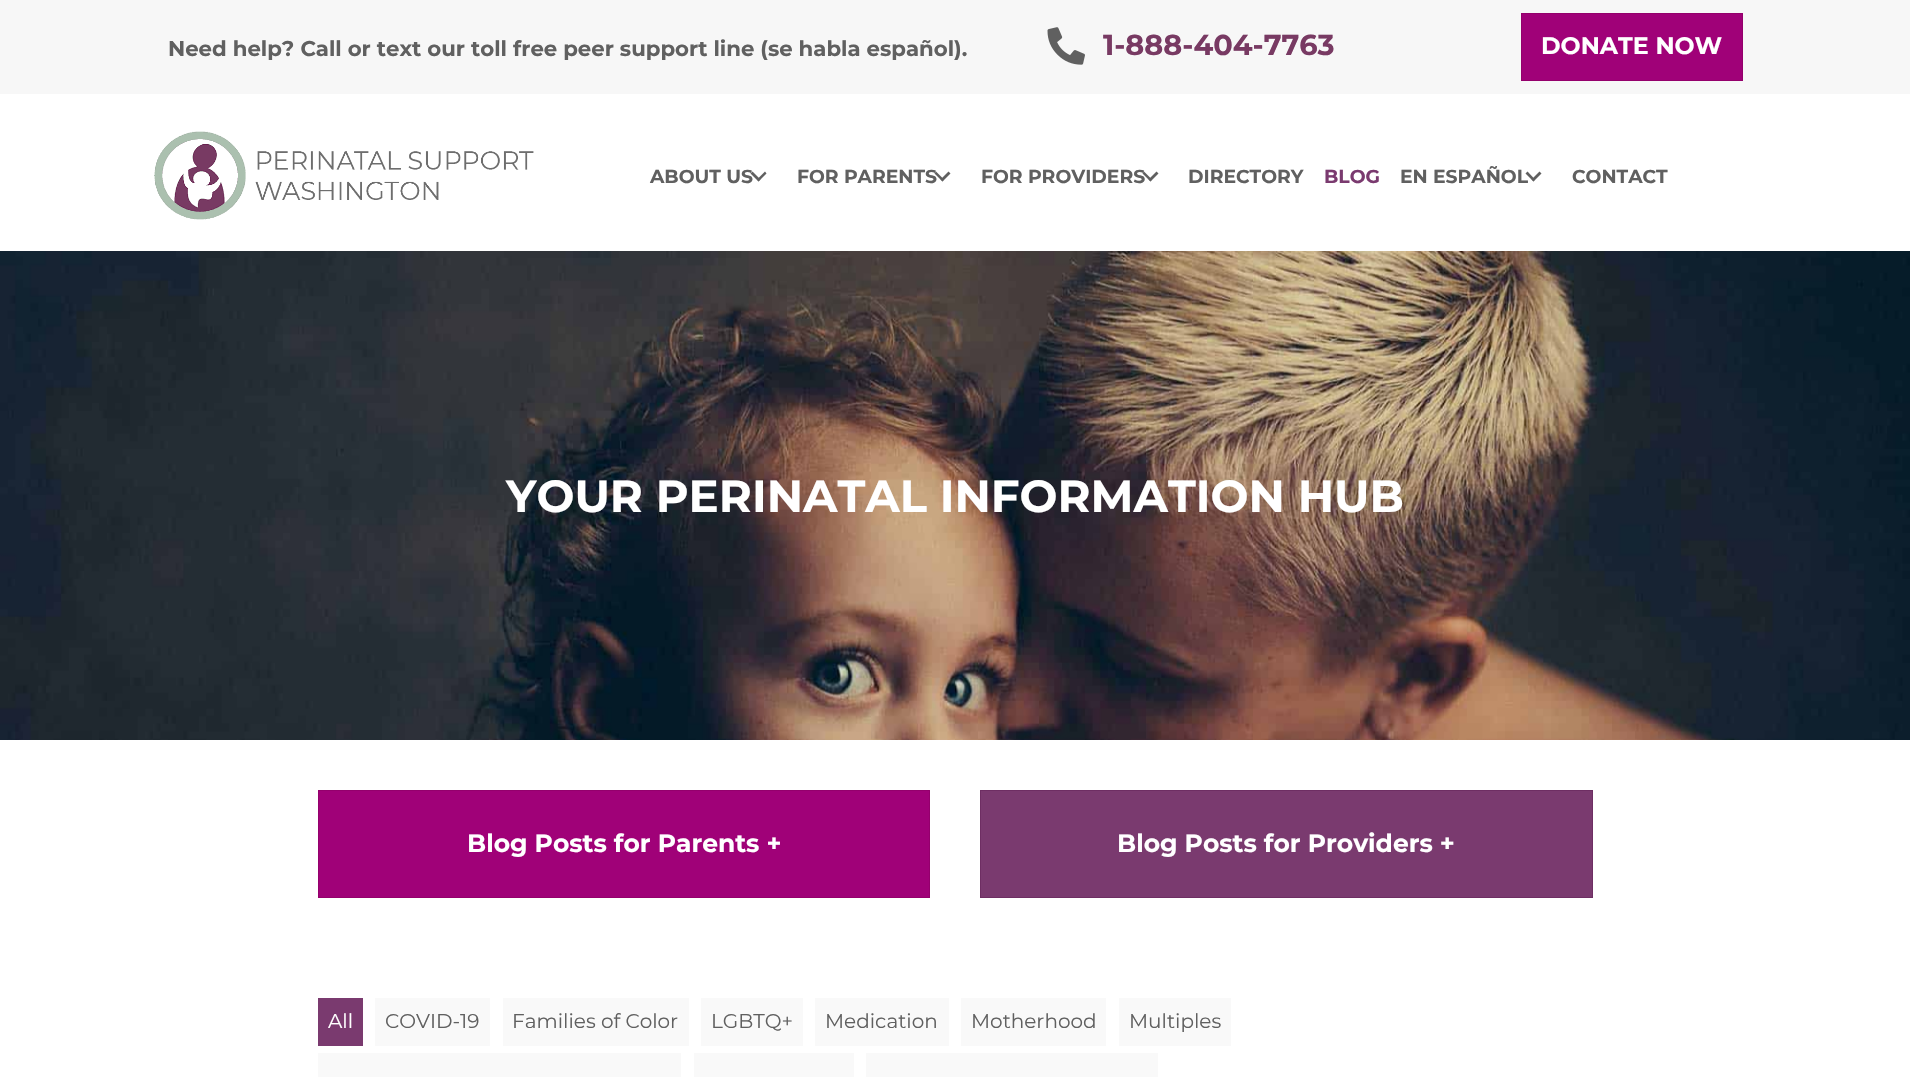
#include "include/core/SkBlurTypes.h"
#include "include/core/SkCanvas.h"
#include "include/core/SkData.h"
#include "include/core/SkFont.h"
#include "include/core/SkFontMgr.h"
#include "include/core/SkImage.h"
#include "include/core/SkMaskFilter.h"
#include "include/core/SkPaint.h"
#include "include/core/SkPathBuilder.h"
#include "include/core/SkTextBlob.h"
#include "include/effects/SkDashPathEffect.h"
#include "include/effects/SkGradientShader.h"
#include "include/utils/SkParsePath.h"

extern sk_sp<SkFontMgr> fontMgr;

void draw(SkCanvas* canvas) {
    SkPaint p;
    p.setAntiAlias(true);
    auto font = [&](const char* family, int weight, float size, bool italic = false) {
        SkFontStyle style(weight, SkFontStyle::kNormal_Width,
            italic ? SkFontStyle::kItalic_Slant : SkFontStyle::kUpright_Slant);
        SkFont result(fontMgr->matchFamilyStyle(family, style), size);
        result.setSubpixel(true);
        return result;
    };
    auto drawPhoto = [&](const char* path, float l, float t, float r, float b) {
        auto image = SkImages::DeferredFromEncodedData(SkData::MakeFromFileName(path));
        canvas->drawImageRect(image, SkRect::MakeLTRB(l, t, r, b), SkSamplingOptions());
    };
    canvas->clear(0xFFFFFFFF);
    p.setColor(0xFFF7F7F7);
    canvas->drawRect(SkRect::MakeLTRB(0, 0, 1910, 94), p);
    auto font1 = font("Montserrat", 700, 21.25f);
    p.setColor(0xFF606060);
    canvas->drawString("Need help? Call or text our toll free peer support line (se habla español).", 168, 56, font1, p);
    drawPhoto("media/1.png", 1047, 27, 1085, 65);
    auto font2 = font("Montserrat", 700, 28.75f);
    p.setColor(0xFF783A63);
    canvas->drawString("1-888-404-7763", 1103, 55, font2, p);
    p.setColor(0xFFA00178);
    canvas->drawRect(SkRect::MakeLTRB(1521.5f, 13.5f, 1742.5f, 80.5f), p);
    p.setStyle(SkPaint::kStroke_Style);
    p.setStrokeWidth(1);
    p.setColor(0xFF94006C);
    canvas->drawRect(SkRect::MakeLTRB(1521.5f, 13.5f, 1742.5f, 80.5f), p);
    auto font3 = font("Montserrat", 700, 23.75f);
    p.setStyle(SkPaint::kFill_Style);
    p.setColor(0xFFFFFFFF);
    canvas->drawString("DONATE NOW", 1541, 54, font3, p);
    drawPhoto("media/2.png", 154, 131, 534, 220);
    auto font4 = font("Montserrat", 700, 18.75f);
    p.setColor(0xFF606060);
    canvas->drawString("ABOUT US", 650, 183, font4, p);
    canvas->drawPath(SkPathBuilder().moveTo(765, 171.5f).lineTo(766.5f, 173.5f).lineTo(758.5f, 181.5f).lineTo(757, 179.5f).close().detach(), p);
    canvas->drawPath(SkPathBuilder().moveTo(752.5f, 171.5f).lineTo(760.5f, 179.5f).lineTo(758.5f, 181.5f).lineTo(750.5f, 173.5f).close().detach(), p);
    canvas->drawString("FOR PARENTS", 797, 183, font4, p);
    canvas->drawPath(SkPathBuilder().moveTo(948.5f, 171.5f).lineTo(950.5f, 173.5f).lineTo(942.5f, 181.5f).lineTo(940.5f, 179.5f).close().detach(), p);
    canvas->drawPath(SkPathBuilder().moveTo(936, 171.5f).lineTo(944, 179.5f).lineTo(942.5f, 181.5f).lineTo(934.5f, 173.5f).close().detach(), p);
    canvas->drawString("FOR PROVIDERS", 981, 183, font4, p);
    canvas->drawPath(SkPathBuilder().moveTo(1156.5f, 171.5f).lineTo(1158.5f, 173.5f).lineTo(1150.5f, 181.5f).lineTo(1148.5f, 179.5f).close().detach(), p);
    canvas->drawPath(SkPathBuilder().moveTo(1144, 171.5f).lineTo(1152, 179.5f).lineTo(1150.5f, 181.5f).lineTo(1142.5f, 173.5f).close().detach(), p);
    canvas->drawString("DIRECTORY", 1188, 183, font4, p);
    p.setColor(0xFF7A3A6F);
    canvas->drawString("BLOG", 1324, 183, font4, p);
    p.setColor(0xFF606060);
    canvas->drawString("EN ESPAÑOL", 1400, 183, font4, p);
    canvas->drawPath(SkPathBuilder().moveTo(1539.5f, 171.5f).lineTo(1541.5f, 173.5f).lineTo(1533.5f, 181.5f).lineTo(1531.5f, 179.5f).close().detach(), p);
    canvas->drawPath(SkPathBuilder().moveTo(1527.5f, 171.5f).lineTo(1535, 179.5f).lineTo(1533.5f, 181.5f).lineTo(1525.5f, 173.5f).close().detach(), p);
    canvas->drawString("CONTACT", 1572, 183, font4, p);
    drawPhoto("media/3.png", 0, 251, 1910, 740);
    auto font5 = font("Montserrat", 700, 45);
    p.setColor(0xFFFFFFFF);
    canvas->drawString("YOUR PERINATAL INFORMATION HUB", 506, 512, font5, p);
    p.setColor(0xFFA00178);
    canvas->drawRect(SkRect::MakeLTRB(318.5f, 790.5f, 929.5f, 897.5f), p);
    p.setStyle(SkPaint::kStroke_Style);
    p.setColor(0xFF94006C);
    canvas->drawRect(SkRect::MakeLTRB(318.5f, 790.5f, 929.5f, 897.5f), p);
    auto font6 = font("Montserrat", 700, 25);
    p.setStyle(SkPaint::kFill_Style);
    p.setColor(0xFFFFFFFF);
    canvas->drawString("Blog Posts for Parents +", 467, 852, font6, p);
    p.setColor(0xFF7A3A6F);
    canvas->drawRect(SkRect::MakeLTRB(980.5f, 790.5f, 1592.5f, 897.5f), p);
    p.setStyle(SkPaint::kStroke_Style);
    p.setColor(0xFF6E2E63);
    canvas->drawRect(SkRect::MakeLTRB(980.5f, 790.5f, 1592.5f, 897.5f), p);
    p.setStyle(SkPaint::kFill_Style);
    p.setColor(0xFFFFFFFF);
    canvas->drawString("Blog Posts for Providers +", 1117, 852, font6, p);
    p.setColor(0xFF7A3A6F);
    canvas->drawRect(SkRect::MakeLTRB(318, 998, 363, 1046), p);
    auto font7 = font("Montserrat", 400, 20);
    p.setColor(0xFFFFFFFF);
    canvas->drawString("All", 328, 1028, font7, p);
    p.setColor(0xFFF9F9F9);
    canvas->drawRect(SkRect::MakeLTRB(375, 998, 490, 1046), p);
    p.setColor(0xFF606060);
    canvas->drawString("COVID-19", 385, 1028, font7, p);
    p.setColor(0xFFF9F9F9);
    canvas->drawRect(SkRect::MakeLTRB(503, 998, 689, 1046), p);
    p.setColor(0xFF606060);
    canvas->drawString("Families of Color", 512, 1028, font7, p);
    p.setColor(0xFFF9F9F9);
    canvas->drawRect(SkRect::MakeLTRB(701, 998, 803, 1046), p);
    p.setColor(0xFF606060);
    canvas->drawString("LGBTQ+", 711, 1028, font7, p);
    p.setColor(0xFFF9F9F9);
    canvas->drawRect(SkRect::MakeLTRB(815, 998, 949, 1046), p);
    p.setColor(0xFF606060);
    canvas->drawString("Medication", 825, 1028, font7, p);
    p.setColor(0xFFF9F9F9);
    canvas->drawRect(SkRect::MakeLTRB(961, 998, 1106, 1046), p);
    p.setColor(0xFF606060);
    canvas->drawString("Motherhood", 971, 1028, font7, p);
    p.setColor(0xFFF9F9F9);
    canvas->drawRect(SkRect::MakeLTRB(1119, 998, 1231, 1046), p);
    p.setColor(0xFF606060);
    canvas->drawString("Multiples", 1129, 1028, font7, p);
    {
        const struct { float l, t, r, b; SkColor color; } items[] = {
            {318, 1053, 681, 1077, 0xFFF9F9F9},
            {694, 1053, 854, 1077, 0xFFF9F9F9},
            {866, 1053, 1158, 1077, 0xFFF9F9F9},
        };
        for (auto [l, t, r, b, color] : items) {
            p.setColor(color);
            canvas->drawRect(SkRect::MakeLTRB(l, t, r, b), p);
        }
    }
}
